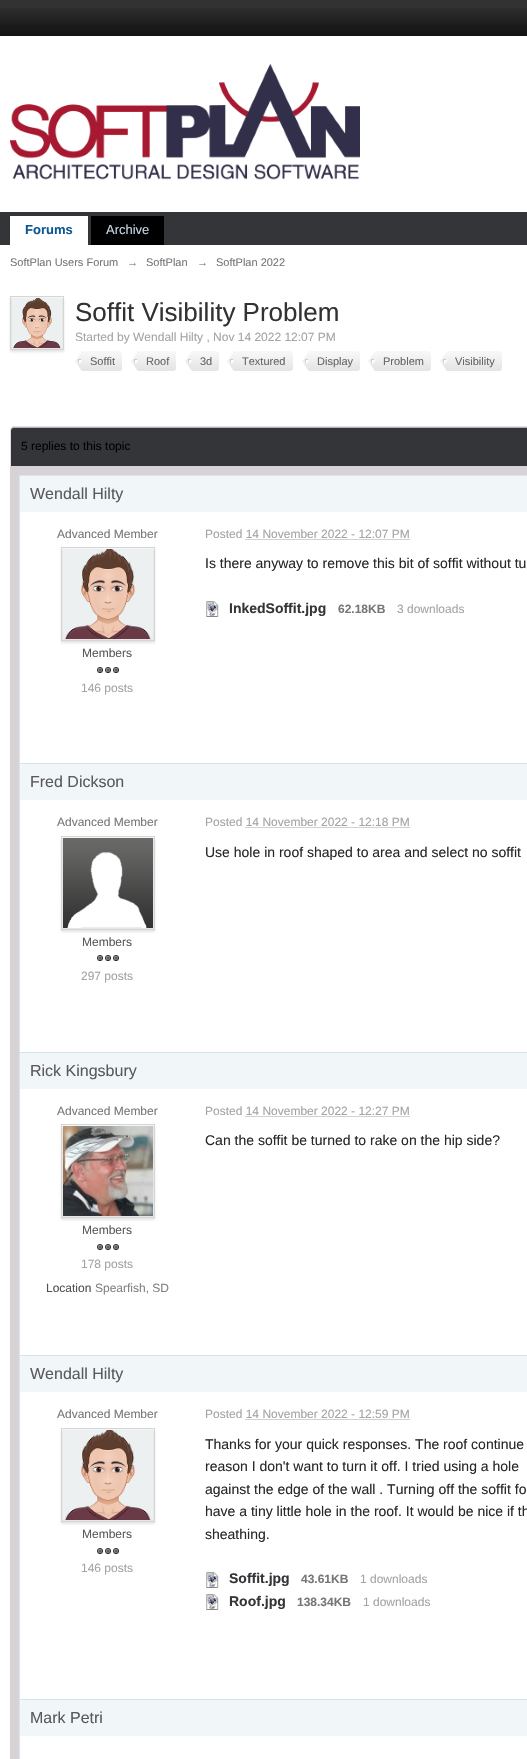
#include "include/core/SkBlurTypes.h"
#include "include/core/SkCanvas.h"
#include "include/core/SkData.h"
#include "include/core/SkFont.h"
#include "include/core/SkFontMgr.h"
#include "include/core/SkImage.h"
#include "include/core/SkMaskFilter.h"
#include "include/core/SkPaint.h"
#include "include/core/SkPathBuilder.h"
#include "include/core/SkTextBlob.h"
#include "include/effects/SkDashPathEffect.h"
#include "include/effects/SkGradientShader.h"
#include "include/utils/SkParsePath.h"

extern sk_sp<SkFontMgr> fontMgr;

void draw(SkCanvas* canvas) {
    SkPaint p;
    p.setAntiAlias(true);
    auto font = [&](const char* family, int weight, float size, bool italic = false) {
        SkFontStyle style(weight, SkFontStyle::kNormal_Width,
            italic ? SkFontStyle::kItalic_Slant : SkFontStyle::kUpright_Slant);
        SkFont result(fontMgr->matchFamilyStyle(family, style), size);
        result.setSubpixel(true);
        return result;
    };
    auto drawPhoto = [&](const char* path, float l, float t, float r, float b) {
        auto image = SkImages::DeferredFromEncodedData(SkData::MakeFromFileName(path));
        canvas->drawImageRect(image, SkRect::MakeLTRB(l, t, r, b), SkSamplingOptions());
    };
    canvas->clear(0xFFFFFFFF);
    p.setColor(0xFF323232);
    canvas->drawRect(SkRect::MakeLTRB(0, 0, 527, 8), p);
    drawPhoto("media/1.png", 0, 8, 527, 36);
    drawPhoto("media/2.png", 10, 64, 360, 180);
    p.setColor(0xFF343538);
    canvas->drawRect(SkRect::MakeLTRB(0, 212, 527, 245), p);
    p.setColor(0xFFFFFFFF);
    canvas->drawRect(SkRect::MakeLTRB(10, 216, 88, 245), p);
    auto font1 = font("Liberation Sans", 700, 13);
    p.setColor(0xFF0B5794);
    canvas->drawString("Forums", 25, 234, font1, p);
    p.setColor(0xFF000000);
    canvas->drawRect(SkRect::MakeLTRB(91, 216, 164, 245), p);
    auto font2 = font("Liberation Sans", 400, 13);
    p.setColor(0xFFC5D5E2);
    canvas->drawString("Archive", 106, 234, font2, p);
    auto font3 = font("Liberation Sans", 400, 11);
    p.setColor(0xFF777777);
    {
        const struct { const char* s; float x, y; } items[] = {
            {"SoftPlan Users Forum", 10, 266},
            {"→", 127, 266},
            {"SoftPlan", 146, 266},
            {"→", 197, 266},
            {"SoftPlan 2022", 216, 266},
        };
        for (auto [s, x, y] : items) {
            canvas->drawString(s, x, y, font3, p);
        }
    }
    p.setColor(0x1A000000);
    p.setMaskFilter(SkMaskFilter::MakeBlur(kNormal_SkBlurStyle, 1));
    canvas->drawRect(SkRect::MakeLTRB(10, 298, 64, 352), p);
    p.setMaskFilter(nullptr);
    p.setStyle(SkPaint::kStroke_Style);
    p.setStrokeWidth(1);
    p.setColor(0xFFD5D5D5);
    canvas->drawRect(SkRect::MakeLTRB(10.5f, 296.5f, 63.5f, 349.5f), p);
    drawPhoto("media/3.png", 12, 298, 62, 348);
    auto font4 = font("Liberation Sans", 400, 26);
    p.setStyle(SkPaint::kFill_Style);
    p.setColor(0xFF323232);
    canvas->drawString("Soffit Visibility Problem", 75, 321, font4, p);
    auto font5 = font("Liberation Sans", 400, 12);
    p.setColor(0xFFA4A4A4);
    canvas->drawString("Started by Wendall Hilty , Nov 14 2022 12:07 PM", 75, 341, font5, p);
    drawPhoto("media/4.png", 75, 351, 122, 371);
    p.setColor(0xFF656565);
    canvas->drawString("Soffit", 90, 365, font3, p);
    drawPhoto("media/5.png", 131, 351, 176, 371);
    canvas->drawString("Roof", 146, 365, font3, p);
    drawPhoto("media/6.png", 185, 351, 219, 371);
    canvas->drawString("3d", 200, 365, font3, p);
    drawPhoto("media/7.png", 227, 351, 293, 371);
    canvas->drawString("Textured", 242, 365, font3, p);
    drawPhoto("media/8.png", 302, 351, 360, 371);
    canvas->drawString("Display", 317, 365, font3, p);
    drawPhoto("media/9.png", 368, 351, 431, 371);
    canvas->drawString("Problem", 383, 365, font3, p);
    drawPhoto("media/10.png", 440, 351, 502, 371);
    canvas->drawString("Visibility", 455, 365, font3, p);
    p.setColor(0xFF343538);
    canvas->drawPath(SkPathBuilder().moveTo(14, 427).lineTo(527, 427).cubicTo(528.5f, 427, 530, 428.5f, 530, 430).lineTo(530, 466).lineTo(11, 466).lineTo(11, 430).cubicTo(11, 428.5f, 12.5f, 427, 14, 427).close().detach(), p);
    p.setColor(0xFFB3B3B3);
    canvas->drawPath(SkPathBuilder().moveTo(14, 428).lineTo(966, 428).cubicTo(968, 428, 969, 429, 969, 431).cubicTo(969, 429, 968, 427, 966, 427).lineTo(14, 427).cubicTo(12, 427, 11, 429, 11, 431).cubicTo(11, 429, 12, 428, 14, 428).close().detach(), p);
    p.setColor(0xFFE0E0E0);
    canvas->drawPath(SkPathBuilder(SkPathFillType::kEvenOdd).moveTo(14, 426).lineTo(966, 426).cubicTo(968, 426, 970, 428, 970, 430).lineTo(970, 466).lineTo(10, 466).lineTo(10, 430).cubicTo(10, 428, 12, 426, 14, 426).close().moveTo(14, 427).lineTo(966, 427).cubicTo(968, 427, 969, 428, 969, 430).lineTo(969, 466).lineTo(11, 466).lineTo(11, 430).cubicTo(11, 428, 12, 427, 14, 427).close().detach(), p);
    p.setColor(0xFF000000);
    canvas->drawString("5 replies to this topic", 21, 450, font5, p);
    p.setColor(0xFFD6D2D6);
    canvas->drawRect(SkRect::MakeLTRB(10, 466, 527, 1759), p);
    p.setColor(0xFFFFFFFF);
    canvas->drawRect(SkRect::MakeLTRB(20, 512, 527, 1759), p);
    p.setStyle(SkPaint::kStroke_Style);
    p.setColor(0xFFDBE4EF);
    canvas->drawRect(SkRect::MakeLTRB(19.5f, 475.5f, 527.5f, 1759.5f), p);
    p.setStyle(SkPaint::kFill_Style);
    p.setColor(0xFFD6E2EB);
    canvas->drawRect(SkRect::MakeLTRB(20, 763, 527, 764), p);
    p.setColor(0xFFF1F6F9);
    canvas->drawRect(SkRect::MakeLTRB(20, 476, 527, 512), p);
    auto font6 = font("Liberation Sans", 400, 16);
    p.setColor(0xFF5A5A5A);
    canvas->drawString("Wendall Hilty", 30, 499, font6, p);
    p.setColor(0xFF777777);
    canvas->drawString("Advanced Member", 57, 538, font5, p);
    p.setColor(0x1A000000);
    p.setMaskFilter(SkMaskFilter::MakeBlur(kNormal_SkBlurStyle, 1));
    canvas->drawRect(SkRect::MakeLTRB(61, 549, 155, 643), p);
    p.setMaskFilter(nullptr);
    p.setStyle(SkPaint::kStroke_Style);
    p.setColor(0xFFD5D5D5);
    canvas->drawRect(SkRect::MakeLTRB(61.5f, 547.5f, 154.5f, 640.5f), p);
    drawPhoto("media/11.png", 63, 549, 153, 639);
    p.setStyle(SkPaint::kFill_Style);
    p.setColor(0xFF5A5A5A);
    canvas->drawString("Members", 82, 657, font5, p);
    drawPhoto("media/12.png", 97, 667, 103, 673);
    drawPhoto("media/12.png", 105, 667, 111, 673);
    drawPhoto("media/12.png", 113, 667, 119, 673);
    p.setColor(0xFFA4A4A4);
    canvas->drawString("146 posts", 81, 692, font5, p);
    canvas->drawString("Posted 14 November 2022 - 12:07 PM", 205, 538, font5, p);
    p.setStyle(SkPaint::kStroke_Style);
    p.setPathEffect(SkDashPathEffect::Make({{1, 1}}, 0));
    canvas->drawPath(SkPathBuilder().moveTo(245.5f, 539.5f).lineTo(410, 539.5f).detach(), p);
    p.setPathEffect(nullptr);
    auto font7 = font("Liberation Sans", 400, 14);
    p.setStyle(SkPaint::kFill_Style);
    p.setColor(0xFF282828);
    canvas->drawString("Is there anyway to remove this bit of soffit without tu", 205, 568, font7, p);
    drawPhoto("media/13.png", 206, 601, 219, 617);
    auto font8 = font("Liberation Sans", 700, 14);
    p.setColor(0xFF343538);
    canvas->drawString("InkedSoffit.jpg", 229, 613, font8, p);
    auto font9 = font("Liberation Sans", 700, 12);
    p.setColor(0xFF777777);
    canvas->drawString("62.18KB", 338, 613, font9, p);
    p.setColor(0xFFA4A4A4);
    canvas->drawString("3 downloads", 397, 613, font5, p);
    p.setColor(0xFFD6E2EB);
    canvas->drawRect(SkRect::MakeLTRB(20, 1052, 527, 1053), p);
    p.setColor(0xFFF1F6F9);
    canvas->drawRect(SkRect::MakeLTRB(20, 764, 527, 800), p);
    p.setColor(0xFF5A5A5A);
    canvas->drawString("Fred Dickson", 30, 787, font6, p);
    p.setColor(0xFF777777);
    canvas->drawString("Advanced Member", 57, 826, font5, p);
    p.setColor(0x1A000000);
    p.setMaskFilter(SkMaskFilter::MakeBlur(kNormal_SkBlurStyle, 1));
    canvas->drawRect(SkRect::MakeLTRB(61, 838, 155, 932), p);
    p.setMaskFilter(nullptr);
    p.setStyle(SkPaint::kStroke_Style);
    p.setColor(0xFFD5D5D5);
    canvas->drawRect(SkRect::MakeLTRB(61.5f, 836.5f, 154.5f, 929.5f), p);
    drawPhoto("media/14.png", 63, 838, 153, 928);
    p.setStyle(SkPaint::kFill_Style);
    p.setColor(0xFF5A5A5A);
    canvas->drawString("Members", 82, 946, font5, p);
    drawPhoto("media/12.png", 97, 955, 103, 961);
    drawPhoto("media/12.png", 105, 955, 111, 961);
    drawPhoto("media/12.png", 113, 955, 119, 961);
    p.setColor(0xFFA4A4A4);
    canvas->drawString("297 posts", 81, 980, font5, p);
    canvas->drawString("Posted 14 November 2022 - 12:18 PM", 205, 826, font5, p);
    p.setStyle(SkPaint::kStroke_Style);
    p.setPathEffect(SkDashPathEffect::Make({{1, 1}}, 0));
    canvas->drawPath(SkPathBuilder().moveTo(245.5f, 827.5f).lineTo(410, 827.5f).detach(), p);
    p.setPathEffect(nullptr);
    p.setStyle(SkPaint::kFill_Style);
    p.setColor(0xFF282828);
    canvas->drawString("Use hole in roof shaped to area and select no soffit", 205, 857, font7, p);
    p.setColor(0xFFD6E2EB);
    canvas->drawRect(SkRect::MakeLTRB(20, 1355, 527, 1356), p);
    p.setColor(0xFFF1F6F9);
    canvas->drawRect(SkRect::MakeLTRB(20, 1053, 527, 1089), p);
    p.setColor(0xFF5A5A5A);
    canvas->drawString("Rick Kingsbury", 30, 1076, font6, p);
    p.setColor(0xFF777777);
    canvas->drawString("Advanced Member", 57, 1115, font5, p);
    p.setColor(0x1A000000);
    p.setMaskFilter(SkMaskFilter::MakeBlur(kNormal_SkBlurStyle, 1));
    canvas->drawRect(SkRect::MakeLTRB(61, 1126, 155, 1220), p);
    p.setMaskFilter(nullptr);
    p.setStyle(SkPaint::kStroke_Style);
    p.setColor(0xFFD5D5D5);
    canvas->drawRect(SkRect::MakeLTRB(61.5f, 1124.5f, 154.5f, 1217.5f), p);
    drawPhoto("media/15.png", 63, 1126, 153, 1216);
    p.setStyle(SkPaint::kFill_Style);
    p.setColor(0xFF5A5A5A);
    canvas->drawString("Members", 82, 1234, font5, p);
    drawPhoto("media/12.png", 97, 1244, 103, 1250);
    drawPhoto("media/12.png", 105, 1244, 111, 1250);
    drawPhoto("media/12.png", 113, 1244, 119, 1250);
    p.setColor(0xFFA4A4A4);
    canvas->drawString("178 posts", 81, 1268, font5, p);
    p.setColor(0xFF505050);
    canvas->drawString("Location", 46, 1292, font5, p);
    p.setColor(0xFF818181);
    canvas->drawString("Spearfish, SD", 95, 1292, font5, p);
    p.setColor(0xFFA4A4A4);
    canvas->drawString("Posted 14 November 2022 - 12:27 PM", 205, 1115, font5, p);
    p.setStyle(SkPaint::kStroke_Style);
    p.setPathEffect(SkDashPathEffect::Make({{1, 1}}, 0));
    canvas->drawPath(SkPathBuilder().moveTo(245.5f, 1116.5f).lineTo(410, 1116.5f).detach(), p);
    p.setPathEffect(nullptr);
    p.setStyle(SkPaint::kFill_Style);
    p.setColor(0xFF282828);
    canvas->drawString("Can the soffit be turned to rake on the hip side?", 205, 1145, font7, p);
    p.setColor(0xFFD6E2EB);
    canvas->drawRect(SkRect::MakeLTRB(20, 1699, 527, 1700), p);
    p.setColor(0xFFF1F6F9);
    canvas->drawRect(SkRect::MakeLTRB(20, 1356, 527, 1392), p);
    p.setColor(0xFF5A5A5A);
    canvas->drawString("Wendall Hilty", 30, 1379, font6, p);
    p.setColor(0xFF777777);
    canvas->drawString("Advanced Member", 57, 1418, font5, p);
    p.setColor(0x1A000000);
    p.setMaskFilter(SkMaskFilter::MakeBlur(kNormal_SkBlurStyle, 1));
    canvas->drawRect(SkRect::MakeLTRB(61, 1430, 155, 1524), p);
    p.setMaskFilter(nullptr);
    p.setStyle(SkPaint::kStroke_Style);
    p.setColor(0xFFD5D5D5);
    canvas->drawRect(SkRect::MakeLTRB(61.5f, 1428.5f, 154.5f, 1521.5f), p);
    drawPhoto("media/11.png", 63, 1430, 153, 1520);
    p.setStyle(SkPaint::kFill_Style);
    p.setColor(0xFF5A5A5A);
    canvas->drawString("Members", 82, 1538, font5, p);
    drawPhoto("media/12.png", 97, 1548, 103, 1554);
    drawPhoto("media/12.png", 105, 1548, 111, 1554);
    drawPhoto("media/12.png", 113, 1548, 119, 1554);
    p.setColor(0xFFA4A4A4);
    canvas->drawString("146 posts", 81, 1572, font5, p);
    canvas->drawString("Posted 14 November 2022 - 12:59 PM", 205, 1418, font5, p);
    p.setStyle(SkPaint::kStroke_Style);
    p.setPathEffect(SkDashPathEffect::Make({{1, 1}}, 0));
    canvas->drawPath(SkPathBuilder().moveTo(245.5f, 1419.5f).lineTo(410, 1419.5f).detach(), p);
    p.setPathEffect(nullptr);
    p.setStyle(SkPaint::kFill_Style);
    p.setColor(0xFF282828);
    {
        const struct { const char* s; float x, y; } items[] = {
            {"Thanks for your quick responses. The roof continue", 205, 1449},
            {"reason I don't want to turn it off. I tried using a hole", 205, 1471},
            {"against the edge of the wall . Turning off the soffit fo", 205, 1494},
            {"have a tiny little hole in the roof. It would be nice if th", 205, 1516},
            {"sheathing.", 205, 1539},
        };
        for (auto [s, x, y] : items) {
            canvas->drawString(s, x, y, font7, p);
        }
    }
    drawPhoto("media/13.png", 206, 1572, 219, 1588);
    p.setColor(0xFF343538);
    canvas->drawString("Soffit.jpg", 229, 1583, font8, p);
    p.setColor(0xFF777777);
    canvas->drawString("43.61KB", 301, 1583, font9, p);
    p.setColor(0xFFA4A4A4);
    canvas->drawString("1 downloads", 360, 1583, font5, p);
    drawPhoto("media/13.png", 206, 1594, 219, 1610);
    p.setColor(0xFF343538);
    canvas->drawString("Roof.jpg", 229, 1606, font8, p);
    p.setColor(0xFF777777);
    canvas->drawString("138.34KB", 297, 1606, font9, p);
    p.setColor(0xFFA4A4A4);
    canvas->drawString("1 downloads", 363, 1606, font5, p);
    p.setColor(0xFFF1F6F9);
    canvas->drawRect(SkRect::MakeLTRB(20, 1700, 527, 1736), p);
    p.setColor(0xFF5A5A5A);
    canvas->drawString("Mark Petri", 30, 1723, font6, p);
}
